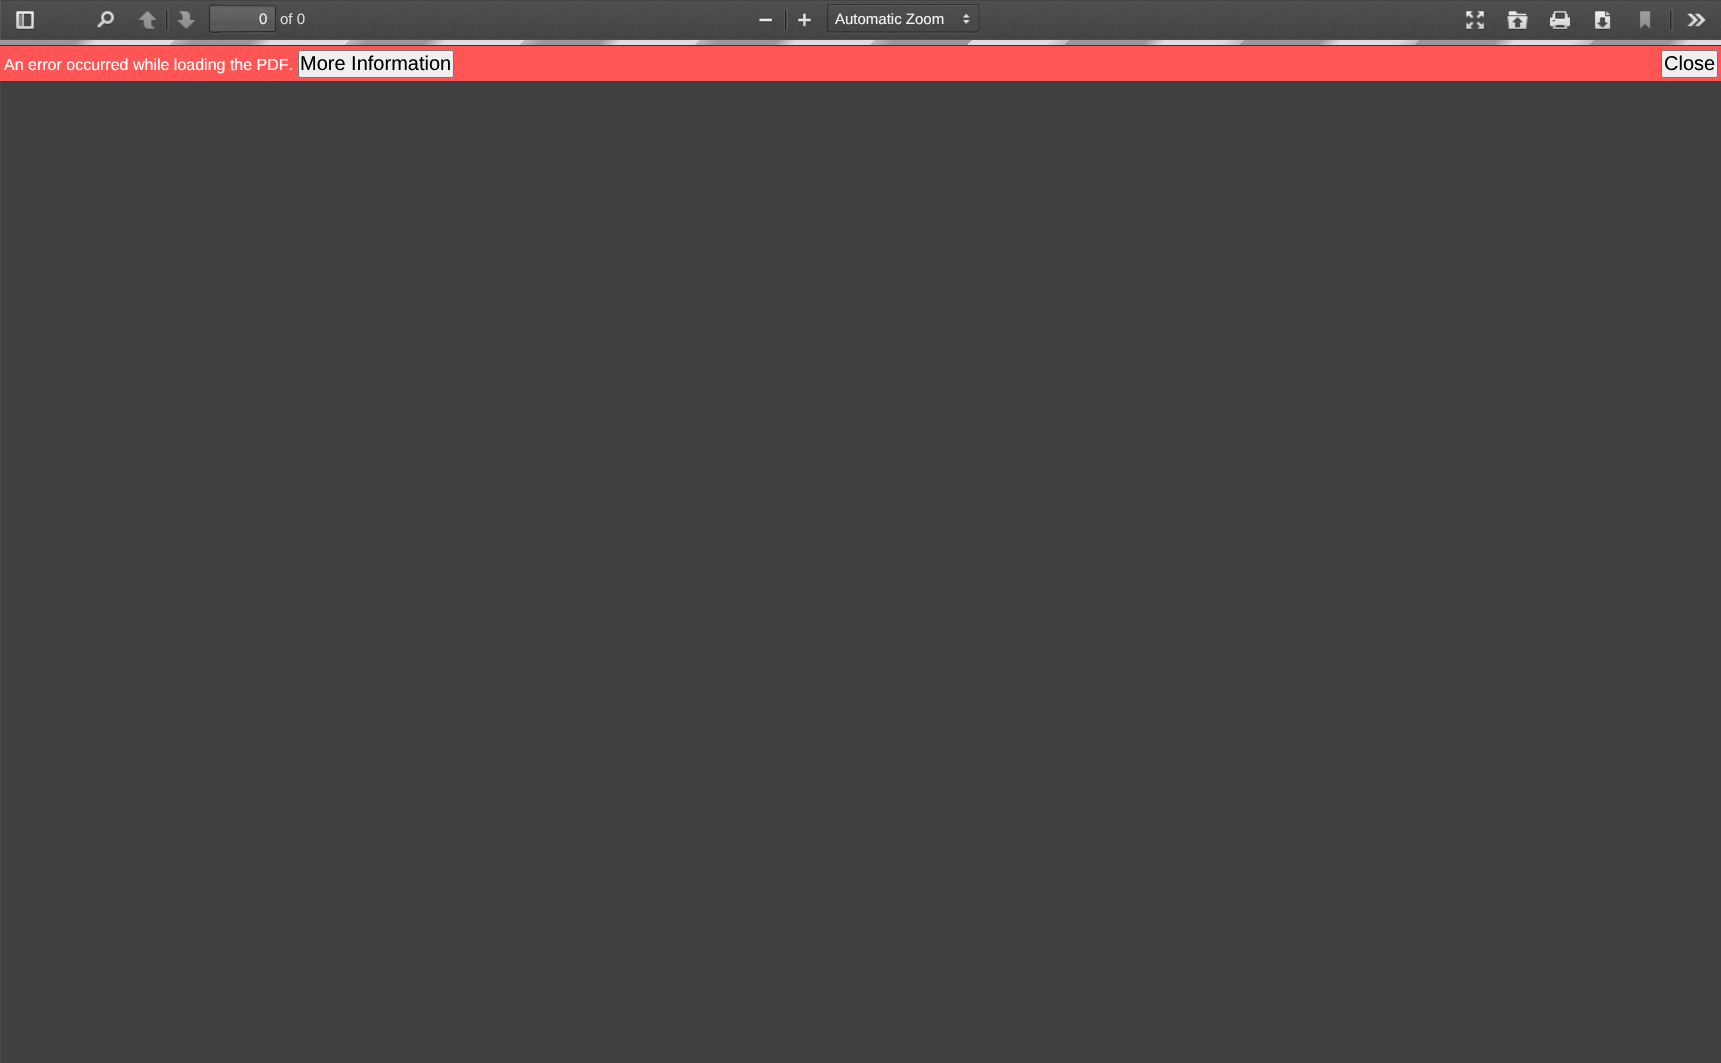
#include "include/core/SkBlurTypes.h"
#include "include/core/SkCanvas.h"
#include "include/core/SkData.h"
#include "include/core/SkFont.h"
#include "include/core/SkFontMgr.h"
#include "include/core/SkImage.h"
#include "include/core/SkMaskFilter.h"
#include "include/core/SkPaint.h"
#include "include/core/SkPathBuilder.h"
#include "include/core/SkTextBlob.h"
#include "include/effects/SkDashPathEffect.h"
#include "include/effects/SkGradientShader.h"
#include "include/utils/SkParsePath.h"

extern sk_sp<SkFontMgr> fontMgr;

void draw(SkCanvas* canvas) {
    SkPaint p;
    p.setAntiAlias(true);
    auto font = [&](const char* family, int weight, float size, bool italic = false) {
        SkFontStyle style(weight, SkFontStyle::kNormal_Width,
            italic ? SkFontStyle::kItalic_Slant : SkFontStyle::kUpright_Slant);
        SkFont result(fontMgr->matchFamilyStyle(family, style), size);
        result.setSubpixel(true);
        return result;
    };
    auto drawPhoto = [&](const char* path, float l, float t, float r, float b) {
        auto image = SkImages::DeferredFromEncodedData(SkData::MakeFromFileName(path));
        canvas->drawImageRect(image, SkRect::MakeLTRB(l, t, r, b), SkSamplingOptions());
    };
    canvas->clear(0xFF404040);
    drawPhoto("media/1.png", 0, 0, 1721, 40);
    {
        const struct { float l, t, r, b; SkColor color; } items[] = {
            {0, 39, 1721, 40, 0x0DFFFFFF},
            {0, 0, 1721, 1, 0x26000000},
            {0, 0, 1, 40, 0x14FFFFFF},
        };
        for (auto [l, t, r, b, color] : items) {
            p.setColor(color);
            canvas->drawRect(SkRect::MakeLTRB(l, t, r, b), p);
        }
    }
    drawPhoto("media/2.png", 16, 11, 34, 30);
    drawPhoto("media/3.png", 97, 11, 114, 29);
    drawPhoto("media/4.png", 138, 11, 157, 30);
    p.setStyle(SkPaint::kStroke_Style);
    p.setStrokeWidth(1);
    canvas->drawRect(SkRect::MakeLTRB(165.5f, 9.5f, 168.5f, 30.5f), p);
    p.setStyle(SkPaint::kFill_Style);
    p.setColor(0x80000000);
    canvas->drawRect(SkRect::MakeLTRB(166, 10, 167, 30), p);
    drawPhoto("media/5.png", 177, 11, 196, 30);
    p.setColor(0x0DFFFFFF);
    canvas->drawPath(SkPathBuilder().moveTo(209, 31).cubicTo(209, 37, 220, 34, 222, 34).lineTo(263, 34).cubicTo(265, 34, 276, 37, 276, 31).cubicTo(274, 34, 265, 32, 263, 32).lineTo(211, 32).close().detach(), p);
    p.setColor(0x17FFFFFF);
    canvas->drawRect(SkRect::MakeLTRB(210, 6, 275, 31), p);
    {
        const SkColor colors[] = {0x0DFFFFFF, 0x00FFFFFF};
        const float stops[] = {0, 1};
        const SkPoint ends[] = {{243, 6.2f}, {243, 31}};
        p.setShader(SkGradientShader::MakeLinear(ends, colors, stops, 2, SkTileMode::kClamp));
        p.setAlpha(255);
    }
    canvas->drawRect(SkRect::MakeLTRB(210, 6, 275, 20), p);
    p.setShader(nullptr);
    p.setColor(0x0D000000);
    canvas->drawPath(SkPathBuilder().moveTo(211, 8).lineTo(274, 8).lineTo(275, 9).cubicTo(275, 3, 271, 6, 264, 6).lineTo(222, 6).cubicTo(214, 6, 210, 3, 210, 9).close().detach(), p);
    p.setStyle(SkPaint::kStroke_Style);
    p.setStrokeWidth(1.2f);
    p.setColor(0x52000000);
    canvas->drawPath(SkPathBuilder().moveTo(210, 6).cubicTo(212.5f, 3.5f, 217.5f, 5.5f, 221.5f, 5.5f).lineTo(275, 6).detach(), p);
    p.setColor(0x61000000);
    canvas->drawPath(SkPathBuilder().moveTo(275, 6).lineTo(275.5f, 7.5f).lineTo(275.5f, 30).lineTo(275, 31.5f).detach(), p);
    p.setColor(0x6B000000);
    canvas->drawPath(SkPathBuilder().moveTo(275, 31.5f).lineTo(221.5f, 32).cubicTo(217.5f, 32, 212.5f, 34, 210, 31.5f).detach(), p);
    p.setColor(0x61000000);
    canvas->drawPath(SkPathBuilder().moveTo(210, 31.5f).lineTo(209.5f, 30).lineTo(209.5f, 7.5f).lineTo(210, 6).detach(), p);
    auto font1 = font("Liberation Sans", 400, 15);
    p.setStyle(SkPaint::kFill_Style);
    p.setColor(0xFFF2F2F2);
    canvas->drawString("0", 259, 24, font1, p);
    p.setColor(0xFFD9D9D9);
    canvas->drawString("of 0", 280, 24, font1, p);
    drawPhoto("media/6.png", 759, 18, 772, 23);
    p.setStyle(SkPaint::kStroke_Style);
    p.setStrokeWidth(1);
    p.setColor(0x14FFFFFF);
    canvas->drawRect(SkRect::MakeLTRB(784.5f, 9.5f, 787.5f, 30.5f), p);
    p.setStyle(SkPaint::kFill_Style);
    p.setColor(0x80000000);
    canvas->drawRect(SkRect::MakeLTRB(785, 10, 786, 30), p);
    drawPhoto("media/7.png", 798, 13, 811, 28);
    p.setColor(0x0DFFFFFF);
    canvas->drawPath(SkPathBuilder().moveTo(828, 32).cubicTo(828, 33, 829, 34, 830, 34).lineTo(978, 34).cubicTo(979, 34, 980, 33, 980, 32).lineTo(980, 8).lineTo(979, 6).lineTo(979, 22).cubicTo(979, 24, 981, 32, 977, 32).close().detach(), p);
    drawPhoto("media/8.png", 963, 13, 970, 24);
    canvas->drawPath(SkPathBuilder().moveTo(829, 6).lineTo(977, 6).cubicTo(978, 6, 978, 7, 978, 8).lineTo(978, 31).cubicTo(980, 31, 979, 21, 979, 6).lineTo(978, 5).lineTo(830, 5).close().detach(), p);
    p.setStyle(SkPaint::kStroke_Style);
    p.setStrokeWidth(1.2f);
    p.setColor(0x52000000);
    canvas->drawPath(SkPathBuilder().moveTo(828, 5).lineTo(829.5f, 4.5f).lineTo(977, 4.5f).lineTo(978, 5).detach(), p);
    p.setColor(0x61000000);
    canvas->drawPath(SkPathBuilder().moveTo(978, 5).lineTo(979, 6).lineTo(979, 30).lineTo(978, 31.5f).detach(), p);
    p.setColor(0x6B000000);
    canvas->drawPath(SkPathBuilder().moveTo(978, 31.5f).lineTo(977, 32).lineTo(829.5f, 32).lineTo(828, 31.5f).detach(), p);
    p.setColor(0x61000000);
    canvas->drawPath(SkPathBuilder().moveTo(828, 31.5f).lineTo(827.5f, 30).lineTo(827.5f, 6.5f).lineTo(828, 5).detach(), p);
    p.setStyle(SkPaint::kFill_Style);
    p.setColor(0xFFF2F2F2);
    canvas->drawString("Automatic Zoom", 835, 24, font1, p);
    drawPhoto("media/9.png", 1466, 11, 1484, 30);
    drawPhoto("media/10.png", 1507, 11, 1528, 30);
    drawPhoto("media/11.png", 1550, 11, 1570, 30);
    drawPhoto("media/12.png", 1594, 11, 1611, 30);
    drawPhoto("media/13.png", 1639, 11, 1651, 30);
    p.setStyle(SkPaint::kStroke_Style);
    p.setStrokeWidth(1);
    p.setColor(0x14FFFFFF);
    canvas->drawRect(SkRect::MakeLTRB(1669.5f, 9.5f, 1672.5f, 30.5f), p);
    p.setStyle(SkPaint::kFill_Style);
    p.setColor(0x80000000);
    canvas->drawRect(SkRect::MakeLTRB(1670, 10, 1671, 30), p);
    drawPhoto("media/14.png", 1687, 13, 1706, 28);
    p.setColor(0xFF333333);
    canvas->drawRect(SkRect::MakeLTRB(0, 45, 1721, 46), p);
    {
        const SkColor colors[] = {0xFFBBBBBB, 0xFF999999, 0xFF999999, 0xFFDDDDDD, 0xFFDDDDDD, 0xFFBBBBBB, 0xFF999999, 0xFF999999, 0xFFDDDDDD, 0xFFDDDDDD, 0xFFBBBBBB, 0xFF999999, 0xFF999999, 0xFFDDDDDD, 0xFFDDDDDD, 0xFFBBBBBB, 0xFF999999, 0xFF999999, 0xFFDDDDDD, 0xFFDDDDDD, 0xFFBBBBBB, 0xFF999999, 0xFF999999, 0xFFDDDDDD, 0xFFDDDDDD, 0xFFBBBBBB, 0xFF999999, 0xFF999999, 0xFFDDDDDD, 0xFFDDDDDD, 0xFFBBBBBB, 0xFF999999, 0xFF999999, 0xFFDDDDDD, 0xFFDDDDDD, 0xFFBBBBBB, 0xFF999999, 0xFF999999, 0xFFDDDDDD, 0xFFDDDDDD, 0xFFBBBBBB, 0xFF999999, 0xFF999999, 0xFFDDDDDD, 0xFFDDDDDD, 0xFFBBBBBB, 0xFF999999, 0xFF999999, 0xFFDDDDDD, 0xFFDDDDDD, 0xFFBBBBBB, 0xFF999999, 0xFF999999, 0xFFDDDDDD, 0xFFDDDDDD, 0xFFBBBBBB};
        const float stops[] = {0, 0, 0.04f, 0.05f, 0.09f, 0.09f, 0.1f, 0.13f, 0.14f, 0.18f, 0.18f, 0.19f, 0.22f, 0.23f, 0.27f, 0.27f, 0.28f, 0.31f, 0.32f, 0.36f, 0.36f, 0.37f, 0.4f, 0.41f, 0.45f, 0.45f, 0.46f, 0.5f, 0.5f, 0.54f, 0.55f, 0.55f, 0.59f, 0.6f, 0.63f, 0.64f, 0.64f, 0.68f, 0.69f, 0.72f, 0.73f, 0.73f, 0.77f, 0.78f, 0.81f, 0.82f, 0.82f, 0.86f, 0.87f, 0.9f, 0.91f, 0.91f, 0.95f, 0.96f, 1, 1};
        const SkPoint ends[] = {{476, -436}, {1448, 536}};
        p.setShader(SkGradientShader::MakeLinear(ends, colors, stops, 56, SkTileMode::kClamp));
        p.setAlpha(255);
    }
    canvas->drawRect(SkRect::MakeLTRB(0, 40, 1721, 45), p);
    p.setShader(nullptr);
    p.setColor(0xFFFF5555);
    canvas->drawRect(SkRect::MakeLTRB(0, 46, 1721, 81), p);
    auto font2 = font("Liberation Sans", 400, 16);
    p.setColor(0xFFFFFFFF);
    canvas->drawString("An error occurred while loading the PDF.", 4, 70, font2, p);
    p.setColor(0xFFEFEFEF);
    canvas->drawRoundRect(SkRect::MakeLTRB(298.5f, 50.5f, 453.5f, 77.5f), 2, 2, p);
    p.setStyle(SkPaint::kStroke_Style);
    p.setColor(0xFF767676);
    canvas->drawRoundRect(SkRect::MakeLTRB(298.5f, 50.5f, 453.5f, 77.5f), 2, 2, p);
    auto font3 = font("Liberation Sans", 400, 20);
    p.setStyle(SkPaint::kFill_Style);
    p.setColor(0xFF000000);
    canvas->drawString("More Information", 300, 70, font3, p);
    p.setColor(0xFFEFEFEF);
    canvas->drawRoundRect(SkRect::MakeLTRB(1661.5f, 50.5f, 1717.5f, 77.5f), 2, 2, p);
    p.setStyle(SkPaint::kStroke_Style);
    p.setColor(0xFF767676);
    canvas->drawRoundRect(SkRect::MakeLTRB(1661.5f, 50.5f, 1717.5f, 77.5f), 2, 2, p);
    p.setStyle(SkPaint::kFill_Style);
    p.setColor(0xFF000000);
    canvas->drawString("Close", 1664, 70, font3, p);
    p.setColor(0xFF4A4A4A);
    canvas->drawRect(SkRect::MakeLTRB(0, 81, 1, 1063), p);
}
